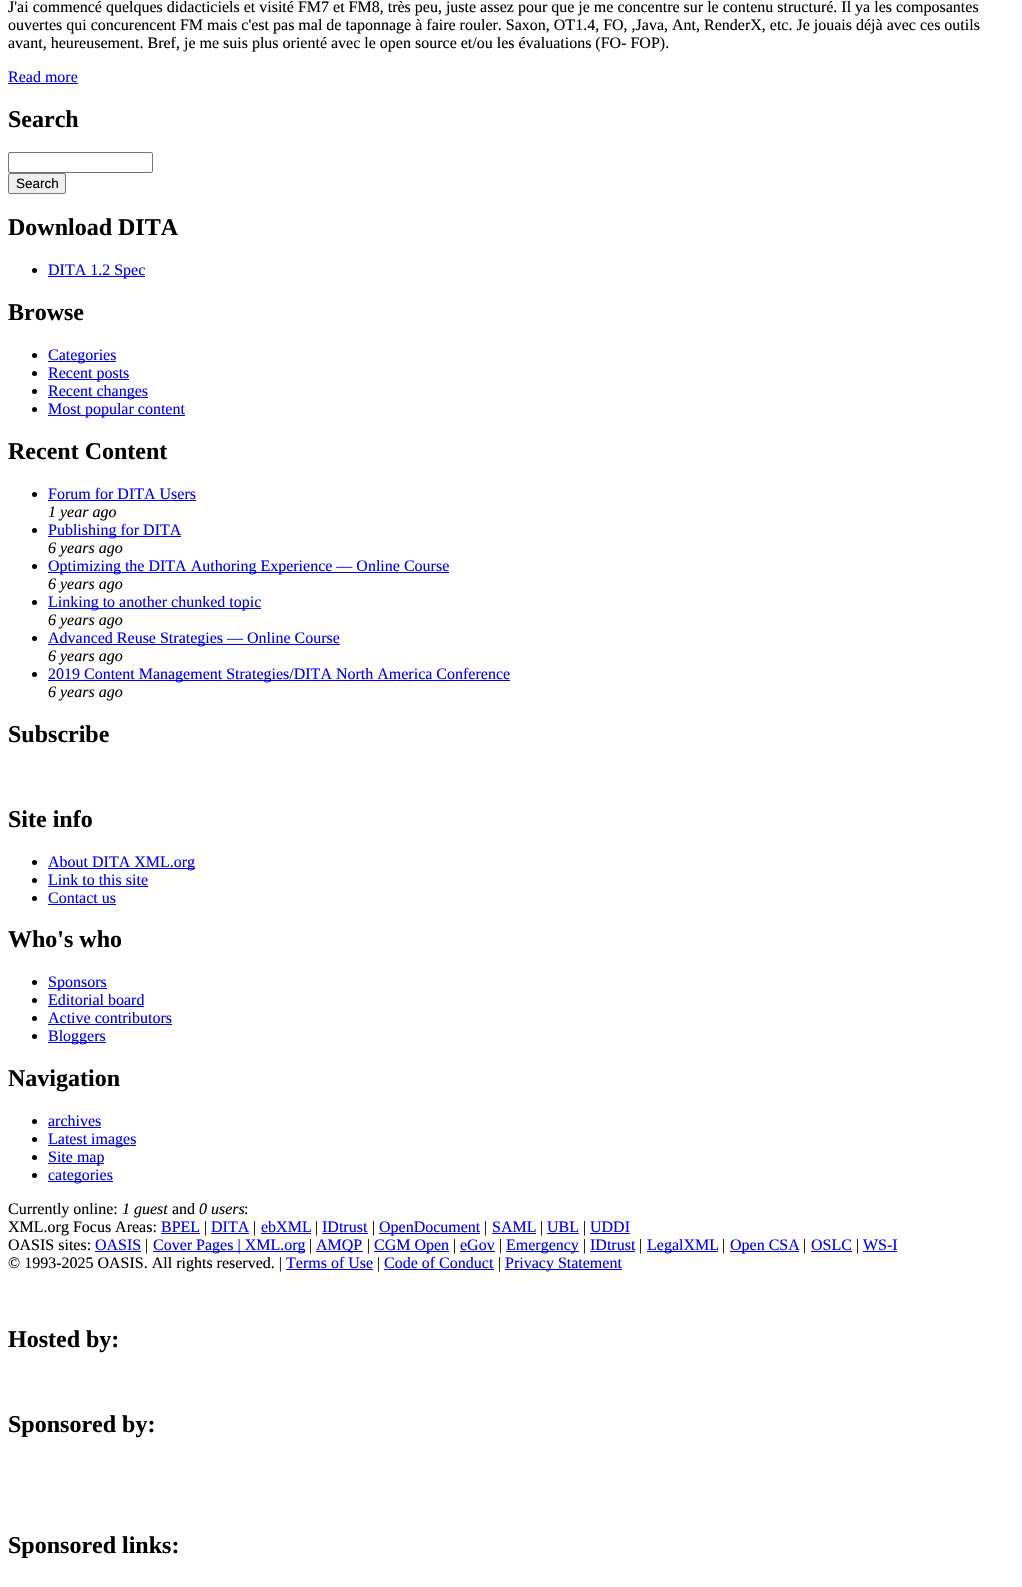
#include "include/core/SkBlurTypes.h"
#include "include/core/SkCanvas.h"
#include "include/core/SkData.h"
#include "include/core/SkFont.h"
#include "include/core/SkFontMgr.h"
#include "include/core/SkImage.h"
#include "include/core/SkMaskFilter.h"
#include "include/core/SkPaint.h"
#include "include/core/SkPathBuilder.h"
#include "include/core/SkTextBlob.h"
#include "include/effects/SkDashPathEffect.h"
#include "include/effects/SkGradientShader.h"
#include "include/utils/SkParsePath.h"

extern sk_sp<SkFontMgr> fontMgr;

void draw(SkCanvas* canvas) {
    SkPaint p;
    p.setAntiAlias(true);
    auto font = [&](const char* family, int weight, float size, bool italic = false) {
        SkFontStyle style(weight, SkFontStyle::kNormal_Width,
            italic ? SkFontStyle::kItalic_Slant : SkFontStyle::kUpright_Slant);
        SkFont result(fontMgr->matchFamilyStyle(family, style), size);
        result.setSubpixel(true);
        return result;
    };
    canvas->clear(0xFFFFFFFF);
    auto font1 = font("Liberation Serif", 400, 16);
    p.setColor(0xFF000000);
    {
        const struct { const char* s; float x, y; } items[] = {
            {"J'ai commencé quelques didacticiels et visité FM7 et FM8, très peu, juste assez pour que je me concentre sur le contenu structuré. Il ya les composantes", 8, 12},
            {"ouvertes qui concurencent FM mais c'est pas mal de taponnage à faire rouler. Saxon, OT1.4, FO, ,Java, Ant, RenderX, etc. Je jouais déjà avec ces outils", 8, 30},
            {"avant, heureusement. Bref, je me suis plus orienté avec le open source et/ou les évaluations (FO- FOP).", 8, 48},
        };
        for (auto [s, x, y] : items) {
            canvas->drawString(s, x, y, font1, p);
        }
    }
    p.setColor(0xFF0000EE);
    canvas->drawString("Read more", 8, 82, font1, p);
    canvas->drawRect(SkRect::MakeLTRB(8, 83, 78, 84), p);
    auto font2 = font("Liberation Serif", 700, 24);
    p.setColor(0xFF000000);
    canvas->drawString("Search", 8, 127, font2, p);
    p.setStyle(SkPaint::kStroke_Style);
    p.setStrokeWidth(1);
    p.setColor(0xFF767676);
    canvas->drawRoundRect(SkRect::MakeLTRB(8.5f, 152.5f, 152.5f, 172.5f), 1.5f, 1.5f, p);
    p.setStyle(SkPaint::kFill_Style);
    p.setColor(0xFFEFEFEF);
    canvas->drawRoundRect(SkRect::MakeLTRB(8.5f, 173.5f, 65.5f, 193.5f), 1.5f, 1.5f, p);
    p.setStyle(SkPaint::kStroke_Style);
    p.setColor(0xFF767676);
    canvas->drawRoundRect(SkRect::MakeLTRB(8.5f, 173.5f, 65.5f, 193.5f), 1.5f, 1.5f, p);
    auto font3 = font("Liberation Sans", 400, 13.5f);
    p.setStyle(SkPaint::kFill_Style);
    p.setColor(0xFF000000);
    canvas->drawString("Search", 16, 188, font3, p);
    canvas->drawString("Download DITA", 8, 235, font2, p);
    canvas->drawCircle(34.5f, 270.5f, 2.5f, p);
    p.setColor(0xFF0000EE);
    canvas->drawRect(SkRect::MakeLTRB(48, 276, 145, 277), p);
    canvas->drawString("DITA 1.2 Spec", 48, 275, font1, p);
    p.setColor(0xFF000000);
    canvas->drawString("Browse", 8, 320, font2, p);
    canvas->drawCircle(34.5f, 355.5f, 2.5f, p);
    p.setColor(0xFF0000EE);
    canvas->drawRect(SkRect::MakeLTRB(48, 361, 116, 362), p);
    canvas->drawString("Categories", 48, 360, font1, p);
    p.setColor(0xFF000000);
    canvas->drawCircle(34.5f, 373.5f, 2.5f, p);
    p.setColor(0xFF0000EE);
    canvas->drawRect(SkRect::MakeLTRB(48, 379, 129, 380), p);
    canvas->drawString("Recent posts", 48, 378, font1, p);
    p.setColor(0xFF000000);
    canvas->drawCircle(34.5f, 391.5f, 2.5f, p);
    p.setColor(0xFF0000EE);
    canvas->drawRect(SkRect::MakeLTRB(48, 397, 148, 398), p);
    canvas->drawString("Recent changes", 48, 396, font1, p);
    p.setColor(0xFF000000);
    canvas->drawCircle(34.5f, 409.5f, 2.5f, p);
    p.setColor(0xFF0000EE);
    canvas->drawRect(SkRect::MakeLTRB(48, 415, 185, 416), p);
    canvas->drawString("Most popular content", 48, 414, font1, p);
    p.setColor(0xFF000000);
    canvas->drawString("Recent Content", 8, 459, font2, p);
    canvas->drawCircle(34.5f, 494.5f, 2.5f, p);
    p.setColor(0xFF0000EE);
    canvas->drawString("Forum for DITA Users", 48, 499, font1, p);
    canvas->drawRect(SkRect::MakeLTRB(48, 500, 196, 501), p);
    auto font4 = font("Liberation Serif", 400, 16, true);
    p.setColor(0xFF000000);
    canvas->drawString("1 year ago", 48, 517, font4, p);
    canvas->drawCircle(34.5f, 530.5f, 2.5f, p);
    p.setColor(0xFF0000EE);
    canvas->drawRect(SkRect::MakeLTRB(48, 536, 181, 537), p);
    canvas->drawString("Publishing for DITA", 48, 535, font1, p);
    p.setColor(0xFF000000);
    canvas->drawString("6 years ago", 48, 553, font4, p);
    canvas->drawCircle(34.5f, 566.5f, 2.5f, p);
    p.setColor(0xFF0000EE);
    canvas->drawRect(SkRect::MakeLTRB(48, 572, 449, 573), p);
    canvas->drawString("Optimizing the DITA Authoring Experience — Online Course", 48, 571, font1, p);
    p.setColor(0xFF000000);
    canvas->drawString("6 years ago", 48, 589, font4, p);
    canvas->drawCircle(34.5f, 602.5f, 2.5f, p);
    p.setColor(0xFF0000EE);
    canvas->drawRect(SkRect::MakeLTRB(48, 608, 261, 609), p);
    canvas->drawString("Linking to another chunked topic", 48, 607, font1, p);
    p.setColor(0xFF000000);
    canvas->drawString("6 years ago", 48, 625, font4, p);
    canvas->drawCircle(34.5f, 638.5f, 2.5f, p);
    p.setColor(0xFF0000EE);
    canvas->drawRect(SkRect::MakeLTRB(48, 644, 340, 645), p);
    canvas->drawString("Advanced Reuse Strategies — Online Course", 48, 643, font1, p);
    p.setColor(0xFF000000);
    canvas->drawString("6 years ago", 48, 661, font4, p);
    canvas->drawCircle(34.5f, 674.5f, 2.5f, p);
    p.setColor(0xFF0000EE);
    canvas->drawRect(SkRect::MakeLTRB(48, 680, 510, 681), p);
    canvas->drawString("2019 Content Management Strategies/DITA North America Conference", 48, 679, font1, p);
    p.setColor(0xFF000000);
    canvas->drawString("6 years ago", 48, 697, font4, p);
    canvas->drawString("Subscribe", 8, 742, font2, p);
    canvas->drawString("Site info", 8, 827, font2, p);
    canvas->drawCircle(34.5f, 862.5f, 2.5f, p);
    p.setColor(0xFF0000EE);
    canvas->drawRect(SkRect::MakeLTRB(48, 868, 195, 869), p);
    canvas->drawString("About DITA XML.org", 48, 867, font1, p);
    p.setColor(0xFF000000);
    canvas->drawCircle(34.5f, 880.5f, 2.5f, p);
    p.setColor(0xFF0000EE);
    canvas->drawString("Link to this site", 48, 885, font1, p);
    canvas->drawRect(SkRect::MakeLTRB(48, 886, 148, 887), p);
    p.setColor(0xFF000000);
    canvas->drawCircle(34.5f, 898.5f, 2.5f, p);
    p.setColor(0xFF0000EE);
    canvas->drawString("Contact us", 48, 903, font1, p);
    canvas->drawRect(SkRect::MakeLTRB(48, 904, 116, 905), p);
    p.setColor(0xFF000000);
    canvas->drawString("Who's who", 8, 947, font2, p);
    canvas->drawCircle(34.5f, 982.5f, 2.5f, p);
    p.setColor(0xFF0000EE);
    canvas->drawRect(SkRect::MakeLTRB(48, 988, 107, 989), p);
    canvas->drawString("Sponsors", 48, 987, font1, p);
    p.setColor(0xFF000000);
    canvas->drawCircle(34.5f, 1000.5f, 2.5f, p);
    p.setColor(0xFF0000EE);
    canvas->drawString("Editorial board", 48, 1005, font1, p);
    canvas->drawRect(SkRect::MakeLTRB(48, 1006, 144, 1007), p);
    p.setColor(0xFF000000);
    canvas->drawCircle(34.5f, 1018.5f, 2.5f, p);
    p.setColor(0xFF0000EE);
    canvas->drawString("Active contributors", 48, 1023, font1, p);
    canvas->drawRect(SkRect::MakeLTRB(48, 1024, 172, 1025), p);
    p.setColor(0xFF000000);
    canvas->drawCircle(34.5f, 1036.5f, 2.5f, p);
    p.setColor(0xFF0000EE);
    canvas->drawRect(SkRect::MakeLTRB(48, 1042, 106, 1043), p);
    canvas->drawString("Bloggers", 48, 1041, font1, p);
    p.setColor(0xFF000000);
    canvas->drawString("Navigation", 8, 1086, font2, p);
    canvas->drawCircle(34.5f, 1121.5f, 2.5f, p);
    p.setColor(0xFF0000EE);
    canvas->drawString("archives", 48, 1126, font1, p);
    canvas->drawRect(SkRect::MakeLTRB(48, 1127, 101, 1128), p);
    p.setColor(0xFF000000);
    canvas->drawCircle(34.5f, 1139.5f, 2.5f, p);
    p.setColor(0xFF0000EE);
    canvas->drawRect(SkRect::MakeLTRB(48, 1145, 136, 1146), p);
    canvas->drawString("Latest images", 48, 1144, font1, p);
    p.setColor(0xFF000000);
    canvas->drawCircle(34.5f, 1157.5f, 2.5f, p);
    p.setColor(0xFF0000EE);
    canvas->drawRect(SkRect::MakeLTRB(48, 1163, 104, 1164), p);
    canvas->drawString("Site map", 48, 1162, font1, p);
    p.setColor(0xFF000000);
    canvas->drawCircle(34.5f, 1175.5f, 2.5f, p);
    p.setColor(0xFF0000EE);
    canvas->drawRect(SkRect::MakeLTRB(48, 1181, 113, 1182), p);
    canvas->drawString("categories", 48, 1180, font1, p);
    p.setColor(0xFF000000);
    canvas->drawString("Currently online:", 8, 1214, font1, p);
    canvas->drawString("1 guest", 122, 1214, font4, p);
    canvas->drawString("and", 172, 1214, font1, p);
    canvas->drawString("0 users", 199, 1214, font4, p);
    canvas->drawString(":", 244, 1214, font1, p);
    canvas->drawString("XML.org Focus Areas:", 8, 1232, font1, p);
    p.setColor(0xFF0000EE);
    canvas->drawString("BPEL", 161, 1232, font1, p);
    canvas->drawRect(SkRect::MakeLTRB(161, 1233, 200, 1234), p);
    p.setColor(0xFF000000);
    canvas->drawString("|", 204, 1232, font1, p);
    p.setColor(0xFF0000EE);
    canvas->drawString("DITA", 211, 1232, font1, p);
    canvas->drawRect(SkRect::MakeLTRB(211, 1233, 249, 1234), p);
    p.setColor(0xFF000000);
    canvas->drawString("|", 253, 1232, font1, p);
    p.setColor(0xFF0000EE);
    canvas->drawString("ebXML", 261, 1232, font1, p);
    canvas->drawRect(SkRect::MakeLTRB(261, 1233, 311, 1234), p);
    p.setColor(0xFF000000);
    canvas->drawString("|", 315, 1232, font1, p);
    p.setColor(0xFF0000EE);
    canvas->drawString("IDtrust", 322, 1232, font1, p);
    canvas->drawRect(SkRect::MakeLTRB(322, 1233, 368, 1234), p);
    p.setColor(0xFF000000);
    canvas->drawString("|", 372, 1232, font1, p);
    p.setColor(0xFF0000EE);
    canvas->drawRect(SkRect::MakeLTRB(379, 1233, 480, 1234), p);
    canvas->drawString("OpenDocument", 379, 1232, font1, p);
    p.setColor(0xFF000000);
    canvas->drawString("|", 484, 1232, font1, p);
    p.setColor(0xFF0000EE);
    canvas->drawString("SAML", 492, 1232, font1, p);
    canvas->drawRect(SkRect::MakeLTRB(492, 1233, 536, 1234), p);
    p.setColor(0xFF000000);
    canvas->drawString("|", 540, 1232, font1, p);
    p.setColor(0xFF0000EE);
    canvas->drawString("UBL", 547, 1232, font1, p);
    canvas->drawRect(SkRect::MakeLTRB(547, 1233, 579, 1234), p);
    p.setColor(0xFF000000);
    canvas->drawString("|", 583, 1232, font1, p);
    p.setColor(0xFF0000EE);
    canvas->drawString("UDDI", 590, 1232, font1, p);
    canvas->drawRect(SkRect::MakeLTRB(590, 1233, 630, 1234), p);
    p.setColor(0xFF000000);
    canvas->drawString("OASIS sites:", 8, 1250, font1, p);
    p.setColor(0xFF0000EE);
    canvas->drawString("OASIS", 95, 1250, font1, p);
    canvas->drawRect(SkRect::MakeLTRB(95, 1251, 141, 1252), p);
    p.setColor(0xFF000000);
    canvas->drawString("|", 145, 1250, font1, p);
    p.setColor(0xFF0000EE);
    canvas->drawRect(SkRect::MakeLTRB(153, 1251, 305, 1252), p);
    canvas->drawString("Cover Pages | XML.org", 153, 1250, font1, p);
    p.setColor(0xFF000000);
    canvas->drawString("|", 309, 1250, font1, p);
    p.setColor(0xFF0000EE);
    canvas->drawRect(SkRect::MakeLTRB(316, 1251, 363, 1252), p);
    canvas->drawString("AMQP", 316, 1250, font1, p);
    p.setColor(0xFF000000);
    canvas->drawString("|", 367, 1250, font1, p);
    p.setColor(0xFF0000EE);
    canvas->drawRect(SkRect::MakeLTRB(374, 1251, 449, 1252), p);
    canvas->drawString("CGM Open", 374, 1250, font1, p);
    p.setColor(0xFF000000);
    canvas->drawString("|", 453, 1250, font1, p);
    p.setColor(0xFF0000EE);
    canvas->drawString("eGov", 460, 1250, font1, p);
    canvas->drawRect(SkRect::MakeLTRB(460, 1251, 495, 1252), p);
    p.setColor(0xFF000000);
    canvas->drawString("|", 499, 1250, font1, p);
    p.setColor(0xFF0000EE);
    canvas->drawRect(SkRect::MakeLTRB(506, 1251, 579, 1252), p);
    canvas->drawString("Emergency", 506, 1250, font1, p);
    p.setColor(0xFF000000);
    canvas->drawString("|", 583, 1250, font1, p);
    p.setColor(0xFF0000EE);
    canvas->drawString("IDtrust", 590, 1250, font1, p);
    canvas->drawRect(SkRect::MakeLTRB(590, 1251, 635, 1252), p);
    p.setColor(0xFF000000);
    canvas->drawString("|", 639, 1250, font1, p);
    p.setColor(0xFF0000EE);
    canvas->drawRect(SkRect::MakeLTRB(647, 1251, 718, 1252), p);
    canvas->drawString("LegalXML", 647, 1250, font1, p);
    p.setColor(0xFF000000);
    canvas->drawString("|", 722, 1250, font1, p);
    p.setColor(0xFF0000EE);
    canvas->drawRect(SkRect::MakeLTRB(730, 1251, 799, 1252), p);
    canvas->drawString("Open CSA", 730, 1250, font1, p);
    p.setColor(0xFF000000);
    canvas->drawString("|", 803, 1250, font1, p);
    p.setColor(0xFF0000EE);
    canvas->drawString("OSLC", 811, 1250, font1, p);
    canvas->drawRect(SkRect::MakeLTRB(811, 1251, 852, 1252), p);
    p.setColor(0xFF000000);
    canvas->drawString("|", 856, 1250, font1, p);
    p.setColor(0xFF0000EE);
    canvas->drawString("WS-I", 863, 1250, font1, p);
    canvas->drawRect(SkRect::MakeLTRB(863, 1251, 897, 1252), p);
    p.setColor(0xFF000000);
    canvas->drawString("© 1993-2025 OASIS. All rights reserved. |", 8, 1268, font1, p);
    p.setColor(0xFF0000EE);
    canvas->drawString("Terms of Use", 286, 1268, font1, p);
    canvas->drawRect(SkRect::MakeLTRB(286, 1269, 373, 1270), p);
    p.setColor(0xFF000000);
    canvas->drawString("|", 377, 1268, font1, p);
    p.setColor(0xFF0000EE);
    canvas->drawString("Code of Conduct", 384, 1268, font1, p);
    canvas->drawRect(SkRect::MakeLTRB(384, 1269, 494, 1270), p);
    p.setColor(0xFF000000);
    canvas->drawString("|", 498, 1268, font1, p);
    p.setColor(0xFF0000EE);
    canvas->drawRect(SkRect::MakeLTRB(505, 1269, 622, 1270), p);
    canvas->drawString("Privacy Statement", 505, 1268, font1, p);
    p.setColor(0xFF000000);
    {
        const struct { const char* s; float x, y; } items[] = {
            {"Hosted by:", 8, 1347},
            {"Sponsored by:", 8, 1432},
            {"Sponsored links:", 8, 1553},
        };
        for (auto [s, x, y] : items) {
            canvas->drawString(s, x, y, font2, p);
        }
    }
}
